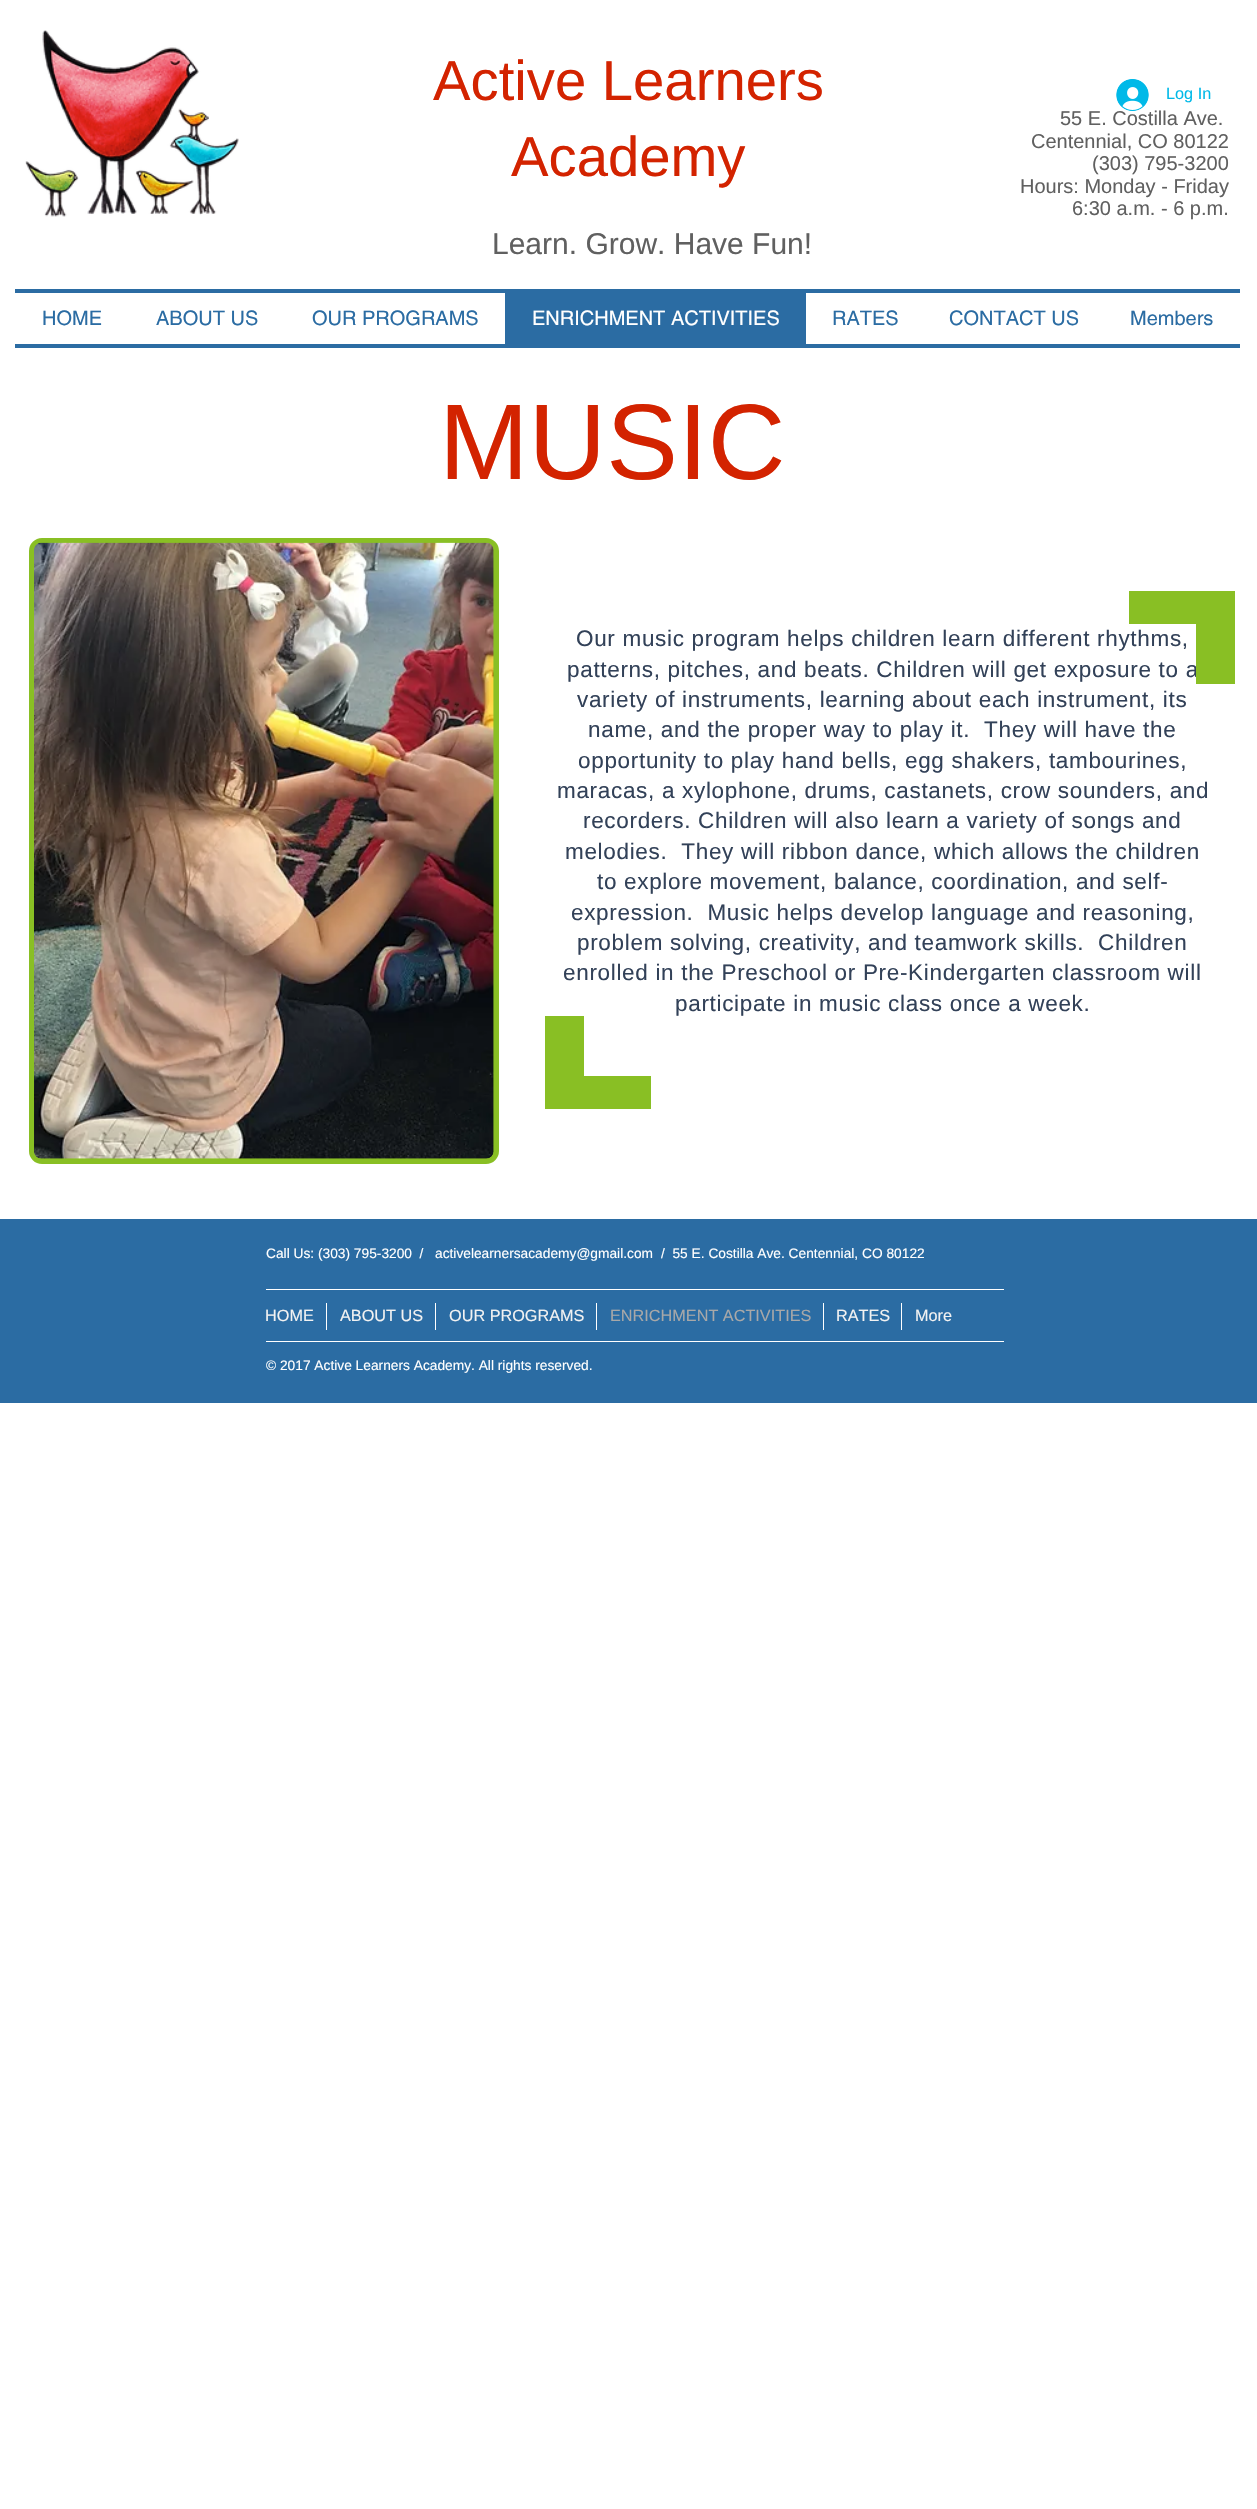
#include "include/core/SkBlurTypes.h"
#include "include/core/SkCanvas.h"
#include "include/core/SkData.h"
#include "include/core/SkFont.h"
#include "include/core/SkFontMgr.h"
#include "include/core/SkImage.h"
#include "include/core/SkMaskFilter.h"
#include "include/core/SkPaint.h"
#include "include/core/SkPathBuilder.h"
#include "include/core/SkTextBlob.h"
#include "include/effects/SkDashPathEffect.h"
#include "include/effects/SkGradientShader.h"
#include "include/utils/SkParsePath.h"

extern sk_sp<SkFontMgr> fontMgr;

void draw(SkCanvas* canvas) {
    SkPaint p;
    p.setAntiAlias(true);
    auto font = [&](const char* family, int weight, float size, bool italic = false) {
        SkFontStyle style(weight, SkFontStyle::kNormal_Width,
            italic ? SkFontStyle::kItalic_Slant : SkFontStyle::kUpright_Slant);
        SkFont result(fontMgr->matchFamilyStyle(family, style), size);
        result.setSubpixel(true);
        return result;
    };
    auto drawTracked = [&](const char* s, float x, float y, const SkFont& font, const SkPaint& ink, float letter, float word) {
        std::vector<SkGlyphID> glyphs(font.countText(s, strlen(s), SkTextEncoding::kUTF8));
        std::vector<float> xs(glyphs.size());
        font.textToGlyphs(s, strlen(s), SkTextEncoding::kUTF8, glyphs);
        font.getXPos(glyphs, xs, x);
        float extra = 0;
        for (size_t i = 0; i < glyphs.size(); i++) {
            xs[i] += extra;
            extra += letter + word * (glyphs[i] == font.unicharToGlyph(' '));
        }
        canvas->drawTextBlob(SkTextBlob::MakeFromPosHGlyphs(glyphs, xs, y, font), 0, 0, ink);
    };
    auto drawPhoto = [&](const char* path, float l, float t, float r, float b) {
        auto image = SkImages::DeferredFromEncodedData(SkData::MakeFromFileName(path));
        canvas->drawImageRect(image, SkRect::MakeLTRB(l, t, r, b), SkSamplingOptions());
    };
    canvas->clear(0xFFFFFFFF);
    drawPhoto("media/1.png", 25, 30, 239, 217);
    auto font1 = font("Liberation Sans", 400, 56.25f);
    p.setColor(0xFFD32300);
    canvas->drawString("Active Learners", 433, 100, font1, p);
    canvas->drawString("Academy", 511, 176, font1, p);
    auto font2 = font("Liberation Sans", 400, 20);
    p.setColor(0xFF606060);
    canvas->drawString("55 E. Costilla Ave.", 1060, 125, font2, p);
    drawPhoto("media/2.png", 1116, 79, 1149, 111);
    auto font3 = font("Liberation Sans", 400, 16.25f);
    p.setColor(0xFF00B9E8);
    canvas->drawString("Log In", 1166, 99, font3, p);
    p.setColor(0xFF606060);
    {
        const struct { const char* s; float x, y; } items[] = {
            {"Centennial, CO 80122", 1031, 148},
            {"(303) 795-3200", 1092, 170},
            {"Hours: Monday - Friday", 1020, 193},
            {"6:30 a.m. - 6 p.m.", 1072, 215},
        };
        for (auto [s, x, y] : items) {
            canvas->drawString(s, x, y, font2, p);
        }
    }
    auto font4 = font("Liberation Sans", 400, 30);
    canvas->drawString("Learn. Grow. Have Fun!", 492, 254, font4, p);
    p.setColor(0xFF2B6CA3);
    canvas->drawRect(SkRect::MakeLTRB(15, 289, 1240, 293), p);
    canvas->drawRect(SkRect::MakeLTRB(15, 344, 1240, 348), p);
    auto font5 = font("helvetica", 400, 20);
    {
        const struct { const char* s; float x, y; } items[] = {
            {"HOME", 42, 325},
            {"ABOUT US", 156, 325},
            {"OUR PROGRAMS", 312, 325},
        };
        for (auto [s, x, y] : items) {
            canvas->drawString(s, x, y, font5, p);
        }
    }
    canvas->drawRect(SkRect::MakeLTRB(505, 293, 806, 344), p);
    p.setColor(0xFFFFFFFF);
    canvas->drawString("ENRICHMENT ACTIVITIES", 532, 325, font5, p);
    p.setColor(0xFF2B6CA3);
    {
        const struct { const char* s; float x, y; } items[] = {
            {"RATES", 832, 325},
            {"CONTACT US", 949, 325},
            {"Members", 1130, 325},
        };
        for (auto [s, x, y] : items) {
            canvas->drawString(s, x, y, font5, p);
        }
    }
    auto font6 = font("Liberation Sans", 400, 107.5f);
    p.setColor(0xFFD32300);
    canvas->drawString("MUSIC", 439, 479, font6, p);
    p.setColor(0xFF89BF24);
    canvas->drawRoundRect(SkRect::MakeLTRB(31.5f, 540.5f, 496.5f, 1161.5f), 10.5f, 10.5f, p);
    p.setStyle(SkPaint::kStroke_Style);
    p.setStrokeWidth(5);
    canvas->drawRoundRect(SkRect::MakeLTRB(31.5f, 540.5f, 496.5f, 1161.5f), 10.5f, 10.5f, p);
    drawPhoto("media/3.png", 34, 542, 494, 1159);
    auto font7 = font("Liberation Sans", 400, 22.5f);
    p.setStyle(SkPaint::kFill_Style);
    p.setColor(0xFF324158);
    drawTracked("Our music program helps children learn different rhythms,", 576, 646, font7, p, 0.68f, 0);
    drawTracked("patterns, pitches, and beats. Children will get exposure to a", 567, 677, font7, p, 0.68f, 0);
    p.setColor(0xFF89BF24);
    canvas->drawPath(SkPathBuilder().moveTo(1235, 684).lineTo(1196, 684).lineTo(1196, 624).lineTo(1129, 624).lineTo(1129, 591).lineTo(1235, 591).close().detach(), p);
    p.setColor(0xFF324158);
    {
        const struct { const char* s; float x, y; } items[] = {
            {"variety of instruments, learning about each instrument, its", 577, 707},
            {"name, and the proper way to play it.  They will have the", 588, 737},
            {"opportunity to play hand bells, egg shakers, tambourines,", 578, 768},
            {"maracas, a xylophone, drums, castanets, crow sounders, and", 557, 798},
            {"recorders. Children will also learn a variety of songs and", 583, 828},
            {"melodies.  They will ribbon dance, which allows the children", 565, 859},
            {"to explore movement, balance, coordination, and self-", 597, 889},
            {"expression.  Music helps develop language and reasoning,", 571, 920},
            {"problem solving, creativity, and teamwork skills.  Children", 577, 950},
            {"enrolled in the Preschool or Pre-Kindergarten classroom will", 563, 980},
            {"participate in music class once a week.", 675, 1011},
        };
        for (auto [s, x, y] : items) {
            drawTracked(s, x, y, font7, p, 0.68f, 0);
        }
    }
    p.setColor(0xFF89BF24);
    canvas->drawPath(SkPathBuilder().moveTo(545, 1016).lineTo(584, 1016).lineTo(584, 1076).lineTo(651, 1076).lineTo(651, 1109).lineTo(545, 1109).close().detach(), p);
    p.setColor(0xFF2B6CA3);
    canvas->drawRect(SkRect::MakeLTRB(0, 1219, 1257, 1403), p);
    auto font8 = font("Liberation Sans", 400, 13.75f);
    p.setColor(0xFFFFFFFF);
    {
        const struct { const char* s; float x, y; } items[] = {
            {"Call Us: (303) 795-3200  /", 266, 1258},
            {"activelearnersacademy@gmail.com", 435, 1258},
            {"/  55 E. Costilla Ave. Centennial, CO 80122", 661, 1258},
        };
        for (auto [s, x, y] : items) {
            canvas->drawString(s, x, y, font8, p);
        }
    }
    canvas->drawRect(SkRect::MakeLTRB(266, 1289, 1004, 1290), p);
    p.setColor(0xFFF2F2F2);
    canvas->drawString("HOME", 265, 1321, font3, p);
    p.setColor(0xFFFFFFFF);
    canvas->drawRect(SkRect::MakeLTRB(326, 1303, 327, 1330), p);
    p.setColor(0xFFF2F2F2);
    canvas->drawString("ABOUT US", 340, 1321, font3, p);
    p.setColor(0xFFFFFFFF);
    canvas->drawRect(SkRect::MakeLTRB(435, 1303, 436, 1330), p);
    p.setColor(0xFFF2F2F2);
    canvas->drawString("OUR PROGRAMS", 449, 1321, font3, p);
    p.setColor(0xFFFFFFFF);
    canvas->drawRect(SkRect::MakeLTRB(596, 1303, 597, 1330), p);
    p.setColor(0xFFA8A8A8);
    canvas->drawString("ENRICHMENT ACTIVITIES", 610, 1321, font3, p);
    p.setColor(0xFFFFFFFF);
    canvas->drawRect(SkRect::MakeLTRB(823, 1303, 824, 1330), p);
    p.setColor(0xFFF2F2F2);
    canvas->drawString("RATES", 836, 1321, font3, p);
    p.setColor(0xFFFFFFFF);
    canvas->drawRect(SkRect::MakeLTRB(901, 1303, 902, 1330), p);
    p.setColor(0xFFF2F2F2);
    canvas->drawString("More", 915, 1321, font3, p);
    p.setColor(0xFFFFFFFF);
    canvas->drawRect(SkRect::MakeLTRB(266, 1341, 1004, 1342), p);
    canvas->drawString("© 2017 Active Learners Academy. All rights reserved.", 266, 1370, font8, p);
}
